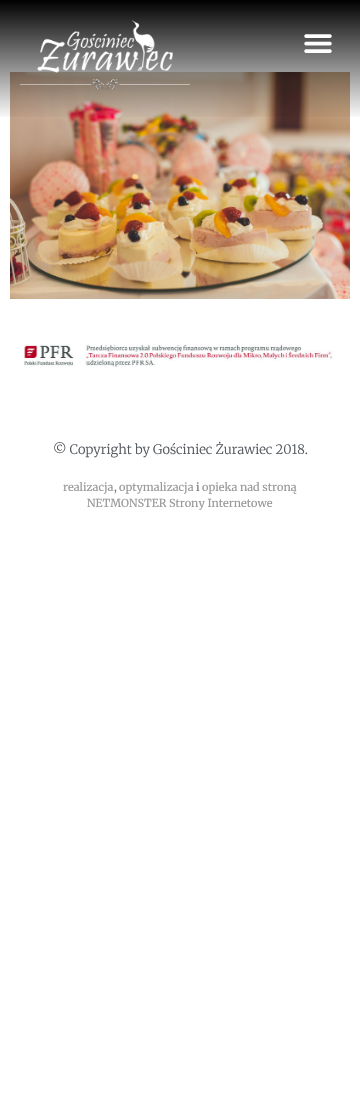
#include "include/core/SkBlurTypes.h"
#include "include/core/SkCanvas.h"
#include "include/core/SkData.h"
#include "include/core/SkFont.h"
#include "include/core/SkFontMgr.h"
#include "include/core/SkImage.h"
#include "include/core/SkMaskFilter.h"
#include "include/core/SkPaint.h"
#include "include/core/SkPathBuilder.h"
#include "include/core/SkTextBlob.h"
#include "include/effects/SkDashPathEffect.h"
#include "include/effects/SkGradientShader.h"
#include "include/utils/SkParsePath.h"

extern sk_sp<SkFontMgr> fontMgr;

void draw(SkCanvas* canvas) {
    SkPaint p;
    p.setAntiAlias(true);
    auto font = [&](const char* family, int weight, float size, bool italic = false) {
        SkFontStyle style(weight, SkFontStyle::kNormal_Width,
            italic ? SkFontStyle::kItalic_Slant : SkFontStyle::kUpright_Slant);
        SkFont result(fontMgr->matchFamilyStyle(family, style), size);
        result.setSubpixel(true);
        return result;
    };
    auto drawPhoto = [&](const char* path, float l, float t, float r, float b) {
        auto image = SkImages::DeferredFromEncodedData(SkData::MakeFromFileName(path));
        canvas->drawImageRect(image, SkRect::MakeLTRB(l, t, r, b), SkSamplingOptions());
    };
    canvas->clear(0xFFFFFFFF);
    drawPhoto("media/3.png", 10, 72, 350, 299);
    {
        const SkColor colors[] = {0xFF000000, 0x00000000};
        const float stops[] = {0, 1};
        const SkPoint ends[] = {{180, 0}, {180, 120}};
        p.setShader(SkGradientShader::MakeLinear(ends, colors, stops, 2, SkTileMode::kClamp));
        p.setAlpha(255);
    }
    canvas->drawRect(SkRect::MakeLTRB(0, 0, 360, 117), p);
    drawPhoto("media/1.png", 20, 20, 190, 90);
    drawPhoto("media/2.png", 304, 34, 332, 53);
    drawPhoto("media/4.png", 24, 344, 333, 367);
    auto font1 = font("Merriweather", 300, 13);
    p.setShader(nullptr);
    p.setColor(0xFF54595F);
    canvas->drawString("© Copyright by Gościniec Żurawiec 2018.", 53, 454, font1, p);
    auto font2 = font("Merriweather", 400, 11);
    p.setColor(0xFF999999);
    canvas->drawString("realizacja", 63, 491, font2, p);
    p.setColor(0xFF7A7A7A);
    canvas->drawString(",", 114, 491, font2, p);
    p.setColor(0xFF999999);
    canvas->drawString("optymalizacja", 119, 491, font2, p);
    p.setColor(0xFF7A7A7A);
    canvas->drawString("i", 196, 491, font2, p);
    p.setColor(0xFF999999);
    canvas->drawString("opieka nad stroną", 202, 491, font2, p);
    canvas->drawString("NETMONSTER Strony Internetowe", 87, 507, font2, p);
}
